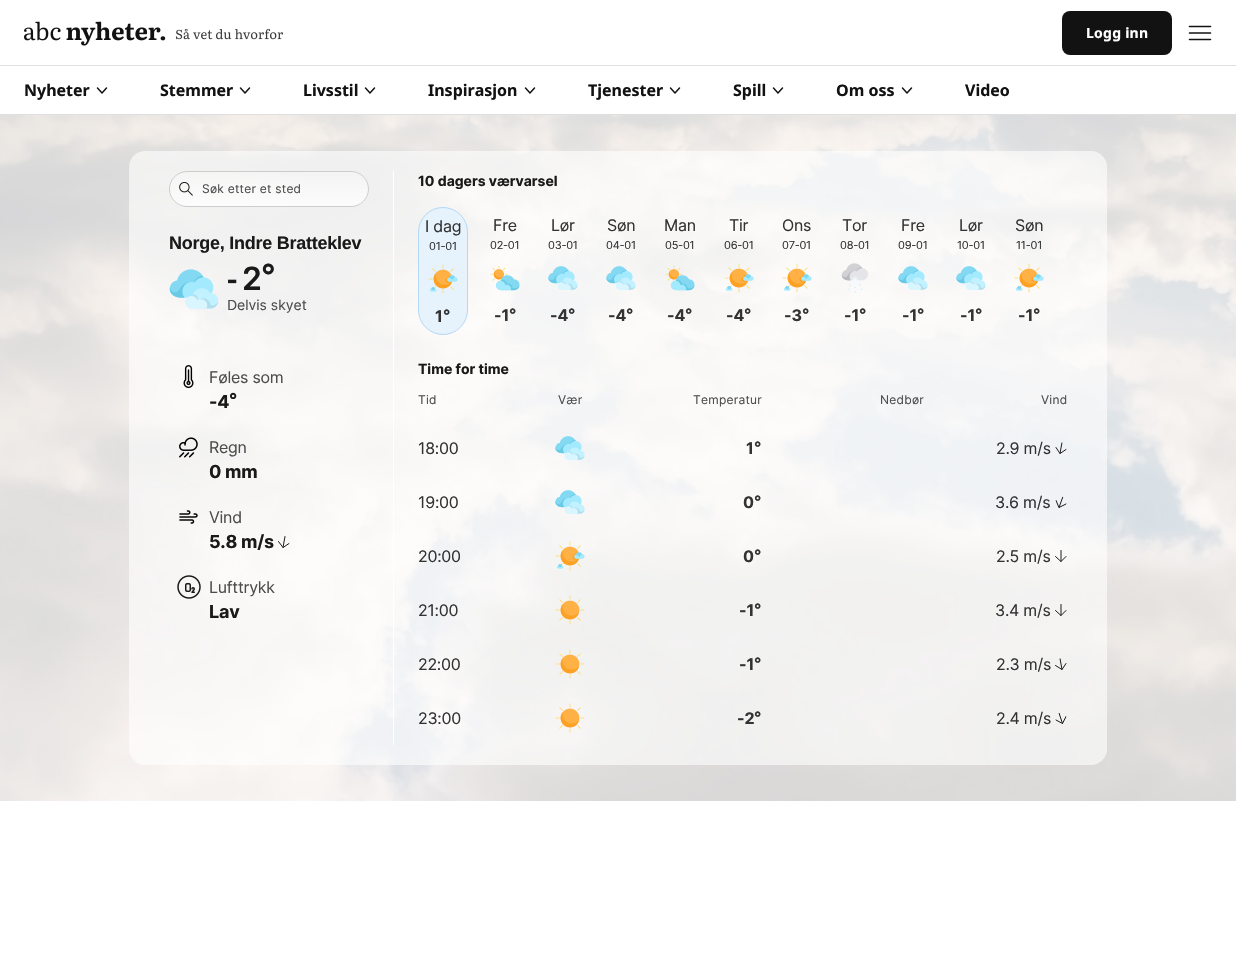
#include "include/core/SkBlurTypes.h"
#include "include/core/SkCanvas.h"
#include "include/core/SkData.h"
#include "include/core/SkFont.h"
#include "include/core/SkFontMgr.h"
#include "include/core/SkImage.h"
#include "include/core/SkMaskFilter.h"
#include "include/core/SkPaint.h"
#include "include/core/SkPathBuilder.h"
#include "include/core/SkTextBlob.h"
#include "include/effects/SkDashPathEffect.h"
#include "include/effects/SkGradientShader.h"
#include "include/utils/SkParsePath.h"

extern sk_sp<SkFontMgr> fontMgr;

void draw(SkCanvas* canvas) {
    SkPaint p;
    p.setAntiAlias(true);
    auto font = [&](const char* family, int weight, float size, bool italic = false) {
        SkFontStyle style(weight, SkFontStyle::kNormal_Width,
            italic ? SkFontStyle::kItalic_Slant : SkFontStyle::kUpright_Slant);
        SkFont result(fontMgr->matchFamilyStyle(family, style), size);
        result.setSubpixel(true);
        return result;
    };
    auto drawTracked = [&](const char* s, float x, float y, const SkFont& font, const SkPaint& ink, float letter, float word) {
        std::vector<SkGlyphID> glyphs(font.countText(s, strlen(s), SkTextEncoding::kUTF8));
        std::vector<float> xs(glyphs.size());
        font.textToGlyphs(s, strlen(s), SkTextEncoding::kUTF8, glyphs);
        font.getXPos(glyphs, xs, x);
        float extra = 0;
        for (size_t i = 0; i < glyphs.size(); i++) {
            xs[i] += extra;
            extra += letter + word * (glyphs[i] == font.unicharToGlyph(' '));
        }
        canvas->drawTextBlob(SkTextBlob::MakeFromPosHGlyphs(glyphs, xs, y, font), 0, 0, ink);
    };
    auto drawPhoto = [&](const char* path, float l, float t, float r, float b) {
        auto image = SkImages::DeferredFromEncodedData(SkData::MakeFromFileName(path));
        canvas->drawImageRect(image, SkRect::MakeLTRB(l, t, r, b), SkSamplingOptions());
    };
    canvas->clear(0xFFFFFFFF);
    p.setColor(0xFFDFDFDF);
    canvas->drawRect(SkRect::MakeLTRB(0, 65, 1236, 66), p);
    drawPhoto("media/1.png", 24, 21, 284, 46);
    p.setColor(0xFF121212);
    canvas->drawRoundRect(SkRect::MakeLTRB(1062, 11, 1172, 55), 8, 8, p);
    auto font1 = font("Noto Sans", 700, 14);
    p.setColor(0xFFFFFFFF);
    drawTracked("Logg inn", 1086, 38, font1, p, 0.25f, 0);
    p.setStyle(SkPaint::kStroke_Style);
    p.setStrokeWidth(1.6f);
    p.setStrokeCap(SkPaint::kRound_Cap);
    p.setStrokeJoin(SkPaint::kRound_Join);
    p.setColor(0xFF121212);
    canvas->drawPath(SkPathBuilder().moveTo(1189.5f, 39.5f).lineTo(1210.5f, 39.5f).moveTo(1189.5f, 33).lineTo(1210.5f, 33).moveTo(1189.5f, 26.5f).lineTo(1210.5f, 26.5f).detach(), p);
    p.setStyle(SkPaint::kFill_Style);
    p.setColor(0xFFDFDFDF);
    canvas->drawRect(SkRect::MakeLTRB(0, 114, 1236, 115), p);
    auto font2 = font("Noto Sans", 700, 16);
    p.setColor(0xFF121212);
    canvas->drawString("Nyheter", 24, 96, font2, p);
    p.setStyle(SkPaint::kStroke_Style);
    p.setStrokeWidth(1.5f);
    canvas->drawPath(SkPathBuilder().moveTo(97.5f, 88).lineTo(102, 93).lineTo(106.5f, 88).detach(), p);
    p.setStyle(SkPaint::kFill_Style);
    canvas->drawString("Stemmer", 160, 96, font2, p);
    p.setStyle(SkPaint::kStroke_Style);
    canvas->drawPath(SkPathBuilder().moveTo(240.5f, 88).lineTo(245, 93).lineTo(249.5f, 88).detach(), p);
    p.setStyle(SkPaint::kFill_Style);
    canvas->drawString("Livsstil", 303, 96, font2, p);
    p.setStyle(SkPaint::kStroke_Style);
    canvas->drawPath(SkPathBuilder().moveTo(365.5f, 88).lineTo(370, 93).lineTo(374.5f, 88).detach(), p);
    p.setStyle(SkPaint::kFill_Style);
    canvas->drawString("Inspirasjon", 428, 96, font2, p);
    p.setStyle(SkPaint::kStroke_Style);
    canvas->drawPath(SkPathBuilder().moveTo(525.5f, 88).lineTo(530, 93).lineTo(534.5f, 88).detach(), p);
    p.setStyle(SkPaint::kFill_Style);
    canvas->drawString("Tjenester", 588, 96, font2, p);
    p.setStyle(SkPaint::kStroke_Style);
    canvas->drawPath(SkPathBuilder().moveTo(670.5f, 88).lineTo(675, 93).lineTo(679.5f, 88).detach(), p);
    p.setStyle(SkPaint::kFill_Style);
    canvas->drawString("Spill", 733, 96, font2, p);
    p.setStyle(SkPaint::kStroke_Style);
    canvas->drawPath(SkPathBuilder().moveTo(773.5f, 88).lineTo(778, 93).lineTo(782.5f, 88).detach(), p);
    p.setStyle(SkPaint::kFill_Style);
    canvas->drawString("Om oss", 836, 96, font2, p);
    p.setStyle(SkPaint::kStroke_Style);
    canvas->drawPath(SkPathBuilder().moveTo(902.5f, 88).lineTo(907, 93).lineTo(911.5f, 88).detach(), p);
    p.setStyle(SkPaint::kFill_Style);
    canvas->drawString("Video", 965, 96, font2, p);
    drawPhoto("media/2.png", 0, 115, 1236, 801);
    p.setColor(0x99FFFFFF);
    canvas->drawRoundRect(SkRect::MakeLTRB(129, 151, 1107, 765), 16, 16, p);
    p.setColor(0xFFFFFFFF);
    canvas->drawRect(SkRect::MakeLTRB(393, 171, 394, 745), p);
    canvas->save();
    canvas->clipPath(SkPathBuilder().moveTo(187, 171).lineTo(351, 171).cubicTo(361, 171, 369, 179, 369, 189).cubicTo(369, 199, 361, 207, 351, 207).lineTo(187, 207).cubicTo(177, 207, 169, 199, 169, 189).cubicTo(169, 179, 177, 171, 187, 171).close().detach(), true);
    {
        const SkColor colors[] = {0x40FFFFFF, 0xBFFFFFFF};
        const float stops[] = {0, 1};
        const SkPoint ends[] = {{269, 172}, {269, 206}};
        p.setShader(SkGradientShader::MakeLinear(ends, colors, stops, 2, SkTileMode::kClamp));
        p.setAlpha(255);
    }
    canvas->drawRect(SkRect::MakeLTRB(169, 172, 369, 206), p);
    canvas->restore();
    p.setStyle(SkPaint::kStroke_Style);
    p.setStrokeWidth(1);
    p.setStrokeCap(SkPaint::kButt_Cap);
    p.setStrokeJoin(SkPaint::kMiter_Join);
    p.setShader(nullptr);
    p.setColor(0xFFCCCCCC);
    canvas->drawRoundRect(SkRect::MakeLTRB(169.5f, 171.5f, 368.5f, 206.5f), 17.5f, 17.5f, p);
    drawPhoto("media/3.png", 179, 182, 193, 196);
    auto font3 = font("Inter", 400, 12);
    p.setStyle(SkPaint::kFill_Style);
    p.setColor(0xFF4D4D4D);
    drawTracked("Søk etter et sted", 202, 193, font3, p, 0.25f, 0);
    auto font4 = font("Liberation Sans", 700, 18);
    p.setColor(0xFF1A1A1A);
    drawTracked("Norge, Indre Bratteklev", 169, 249, font4, p, -0.25f, 0);
    drawPhoto("media/4.png", 169, 269, 219, 309);
    auto font5 = font("Noto Sans", 600, 32);
    drawTracked("-", 227, 290, font5, p, -0.25f, 0);
    auto font6 = font("Inter", 600, 32);
    drawTracked("2", 242, 290, font6, p, -0.25f, 0);
    drawTracked("°", 261, 287, font6, p, -0.25f, 0);
    auto font7 = font("Noto Sans", 400, 14);
    p.setColor(0xFF4D4D4D);
    canvas->drawString("D", 227, 310, font7, p);
    auto font8 = font("Inter", 400, 14);
    canvas->drawString("elvis skyet", 237, 310, font8, p);
    drawPhoto("media/5.png", 183, 365, 194, 388);
    auto font9 = font("Inter", 400, 16);
    drawTracked("Føles som", 209, 383, font9, p, -0.25f, 0);
    auto font10 = font("Inter", 700, 18);
    p.setColor(0xFF1A1A1A);
    drawTracked("-4", 209, 408, font10, p, -0.25f, 0);
    drawTracked("°", 229, 406, font10, p, -0.25f, 0);
    drawPhoto("media/6.png", 179, 437, 198, 458);
    p.setColor(0xFF4D4D4D);
    drawTracked("Regn", 209, 453, font9, p, -0.25f, 0);
    p.setColor(0xFF1A1A1A);
    drawTracked("0 mm", 209, 478, font10, p, -0.25f, 0);
    drawPhoto("media/7.png", 179, 510, 198, 524);
    p.setColor(0xFF4D4D4D);
    drawTracked("Vind", 209, 523, font9, p, -0.25f, 0);
    p.setColor(0xFF1A1A1A);
    drawTracked("5.8 m/s", 209, 548, font10, p, -0.25f, 0);
    canvas->save();
    canvas->clipPath(SkPathBuilder().moveTo(279, 535).lineTo(291, 537).lineTo(288.5f, 549).lineTo(277, 547).close().detach(), true);
    p.setStyle(SkPaint::kStroke_Style);
    p.setStrokeCap(SkPaint::kRound_Cap);
    p.setStrokeJoin(SkPaint::kRound_Join);
    canvas->drawPath(SkPathBuilder().moveTo(285, 536.5f).lineTo(283, 547.5f).moveTo(278.5f, 541.5f).lineTo(283, 547.5f).lineTo(289, 543.5f).detach(), p);
    canvas->restore();
    drawPhoto("media/8.png", 177, 575, 201, 599);
    p.setStyle(SkPaint::kFill_Style);
    p.setColor(0xFF4D4D4D);
    drawTracked("Lufttrykk", 209, 593, font9, p, -0.25f, 0);
    p.setColor(0xFF1A1A1A);
    drawTracked("Lav", 209, 618, font10, p, -0.25f, 0);
    auto font11 = font("Inter", 700, 14);
    canvas->drawString("10 dagers værvarsel", 418, 186, font11, p);
    p.setColor(0xFFE6F2FC);
    canvas->drawRoundRect(SkRect::MakeLTRB(418.5f, 207.5f, 467.5f, 334.5f), 24.5f, 24.5f, p);
    p.setStyle(SkPaint::kStroke_Style);
    p.setStrokeCap(SkPaint::kButt_Cap);
    p.setStrokeJoin(SkPaint::kMiter_Join);
    p.setColor(0xFFB3D8F7);
    canvas->drawRoundRect(SkRect::MakeLTRB(418.5f, 207.5f, 467.5f, 334.5f), 24.5f, 24.5f, p);
    p.setStyle(SkPaint::kFill_Style);
    p.setColor(0xFF333333);
    drawTracked("I dag", 425, 232, font9, p, -0.25f, 0);
    auto font12 = font("Inter", 400, 11);
    drawTracked("01-01", 429, 250, font12, p, -0.25f, 0);
    drawPhoto("media/9.png", 428, 264, 458, 294);
    auto font13 = font("Inter", 700, 16);
    canvas->drawString("1", 435, 322, font13, p);
    canvas->drawString("°", 443, 321, font13, p);
    drawTracked("Fre", 493, 231, font9, p, -0.25f, 0);
    drawTracked("02-01", 490, 249, font12, p, -0.25f, 0);
    drawPhoto("media/10.png", 490, 265, 520, 291);
    canvas->drawString("-1", 494, 321, font13, p);
    canvas->drawString("°", 509, 320, font13, p);
    drawTracked("Lør", 551, 231, font9, p, -0.25f, 0);
    drawTracked("03-01", 548, 249, font12, p, -0.25f, 0);
    drawPhoto("media/11.png", 548, 266, 578, 290);
    canvas->drawString("-4", 550, 321, font13, p);
    canvas->drawString("°", 568, 320, font13, p);
    drawTracked("Søn", 607, 231, font9, p, -0.25f, 0);
    drawTracked("04-01", 606, 249, font12, p, -0.25f, 0);
    drawPhoto("media/12.png", 606, 266, 636, 290);
    canvas->drawString("-4", 608, 321, font13, p);
    canvas->drawString("°", 626, 320, font13, p);
    drawTracked("Man", 664, 231, font9, p, -0.25f, 0);
    drawTracked("05-01", 665, 249, font12, p, -0.25f, 0);
    drawPhoto("media/13.png", 665, 265, 695, 291);
    canvas->drawString("-4", 667, 321, font13, p);
    canvas->drawString("°", 685, 320, font13, p);
    drawTracked("Tir", 729, 231, font9, p, -0.25f, 0);
    drawTracked("06-01", 724, 249, font12, p, -0.25f, 0);
    drawPhoto("media/14.png", 724, 263, 754, 293);
    canvas->drawString("-4", 726, 321, font13, p);
    canvas->drawString("°", 744, 320, font13, p);
    drawTracked("Ons", 782, 231, font9, p, -0.25f, 0);
    drawTracked("07-01", 782, 249, font12, p, -0.25f, 0);
    drawPhoto("media/15.png", 782, 263, 812, 293);
    canvas->drawString("-3", 784, 321, font13, p);
    canvas->drawString("°", 802, 320, font13, p);
    drawTracked("Tor", 842, 231, font9, p, -0.25f, 0);
    drawTracked("08-01", 840, 249, font12, p, -0.25f, 0);
    drawPhoto("media/16.png", 841, 263, 868, 293);
    canvas->drawString("-1", 844, 321, font13, p);
    canvas->drawString("°", 859, 320, font13, p);
    drawTracked("Fre", 901, 231, font9, p, -0.25f, 0);
    drawTracked("09-01", 898, 249, font12, p, -0.25f, 0);
    drawPhoto("media/17.png", 898, 266, 928, 290);
    canvas->drawString("-1", 902, 321, font13, p);
    canvas->drawString("°", 917, 320, font13, p);
    drawTracked("Lør", 959, 231, font9, p, -0.25f, 0);
    drawTracked("10-01", 957, 249, font12, p, -0.25f, 0);
    drawPhoto("media/18.png", 956, 266, 986, 290);
    canvas->drawString("-1", 960, 321, font13, p);
    canvas->drawString("°", 975, 320, font13, p);
    drawTracked("Søn", 1015, 231, font9, p, -0.25f, 0);
    drawTracked("11-01", 1016, 249, font12, p, -0.25f, 0);
    drawPhoto("media/19.png", 1014, 263, 1044, 293);
    canvas->drawString("-1", 1018, 321, font13, p);
    canvas->drawString("°", 1033, 320, font13, p);
    p.setColor(0xFF1A1A1A);
    canvas->drawString("Time for time", 418, 374, font11, p);
    p.setColor(0xFF4D4D4D);
    {
        const struct { const char* s; float x, y; } items[] = {
            {"Tid", 418, 404},
            {"Vær", 558, 404},
            {"Temperatur", 693, 404},
            {"Nedbør", 880, 404},
            {"Vind", 1041, 404},
        };
        for (auto [s, x, y] : items) {
            drawTracked(s, x, y, font3, p, 0.25f, 0);
        }
    }
    p.setColor(0xFF333333);
    drawTracked("18:00", 418, 454, font9, p, -0.25f, 0);
    drawPhoto("media/20.png", 555, 436, 585, 460);
    canvas->drawString("1", 746, 454, font13, p);
    canvas->drawString("°", 754, 453, font13, p);
    drawTracked("2.9 m/s", 996, 454, font9, p, -0.25f, 0);
    canvas->save();
    canvas->clipPath(SkPathBuilder().moveTo(1056, 441.5f).lineTo(1068, 443.5f).lineTo(1066, 455.5f).lineTo(1054, 453.5f).close().detach(), true);
    p.setStyle(SkPaint::kStroke_Style);
    p.setStrokeCap(SkPaint::kRound_Cap);
    p.setStrokeJoin(SkPaint::kRound_Join);
    p.setColor(0xFF1A1A1A);
    canvas->drawPath(SkPathBuilder().moveTo(1062, 442.5f).lineTo(1060, 453.5f).moveTo(1056, 447.5f).lineTo(1060, 453.5f).lineTo(1066, 449.5f).detach(), p);
    canvas->restore();
    p.setStyle(SkPaint::kFill_Style);
    p.setColor(0xFF333333);
    drawTracked("19:00", 418, 508, font9, p, -0.25f, 0);
    drawPhoto("media/21.png", 555, 490, 585, 514);
    canvas->drawString("0", 743, 508, font13, p);
    canvas->drawString("°", 754, 507, font13, p);
    drawTracked("3.6 m/s", 995, 508, font9, p, -0.25f, 0);
    canvas->save();
    canvas->clipPath(SkPathBuilder().moveTo(1057.5f, 495).lineTo(1068.5f, 499).lineTo(1064.5f, 510).lineTo(1053.5f, 506).close().detach(), true);
    p.setStyle(SkPaint::kStroke_Style);
    p.setColor(0xFF1A1A1A);
    canvas->drawPath(SkPathBuilder().moveTo(1063, 496.5f).lineTo(1059, 507.5f).moveTo(1056, 500.5f).lineTo(1059, 507.5f).lineTo(1066, 504).detach(), p);
    canvas->restore();
    p.setStyle(SkPaint::kFill_Style);
    p.setColor(0xFF333333);
    drawTracked("20:00", 418, 562, font9, p, -0.25f, 0);
    drawPhoto("media/22.png", 555, 541, 585, 571);
    canvas->drawString("0", 743, 562, font13, p);
    canvas->drawString("°", 754, 561, font13, p);
    drawTracked("2.5 m/s", 996, 562, font9, p, -0.25f, 0);
    p.setStyle(SkPaint::kStroke_Style);
    p.setColor(0xFF1A1A1A);
    canvas->drawPath(SkPathBuilder().moveTo(1061, 550.5f).lineTo(1061, 561.5f).moveTo(1055.5f, 556.5f).lineTo(1061, 561.5f).lineTo(1066, 556.5f).detach(), p);
    p.setStyle(SkPaint::kFill_Style);
    p.setColor(0xFF333333);
    drawTracked("21:00", 418, 616, font9, p, -0.25f, 0);
    drawPhoto("media/23.png", 555, 595, 585, 625);
    canvas->drawString("-1", 739, 616, font13, p);
    canvas->drawString("°", 754, 615, font13, p);
    drawTracked("3.4 m/s", 995, 616, font9, p, -0.25f, 0);
    p.setStyle(SkPaint::kStroke_Style);
    p.setColor(0xFF1A1A1A);
    canvas->drawPath(SkPathBuilder().moveTo(1061, 604.5f).lineTo(1061, 615.5f).moveTo(1055.5f, 610.5f).lineTo(1061, 615.5f).lineTo(1066, 610.5f).detach(), p);
    p.setStyle(SkPaint::kFill_Style);
    p.setColor(0xFF333333);
    drawTracked("22:00", 418, 670, font9, p, -0.25f, 0);
    drawPhoto("media/24.png", 555, 649, 585, 679);
    canvas->drawString("-1", 739, 670, font13, p);
    canvas->drawString("°", 754, 669, font13, p);
    drawTracked("2.3 m/s", 996, 670, font9, p, -0.25f, 0);
    canvas->save();
    canvas->clipPath(SkPathBuilder().moveTo(1054, 659.5f).lineTo(1066, 657.5f).lineTo(1068, 669.5f).lineTo(1056, 671.5f).close().detach(), true);
    p.setStyle(SkPaint::kStroke_Style);
    p.setColor(0xFF1A1A1A);
    canvas->drawPath(SkPathBuilder().moveTo(1060, 658.5f).lineTo(1062, 669.5f).moveTo(1055.5f, 665.5f).lineTo(1062, 669.5f).lineTo(1066, 663.5f).detach(), p);
    canvas->restore();
    p.setStyle(SkPaint::kFill_Style);
    p.setColor(0xFF333333);
    drawTracked("23:00", 418, 724, font9, p, -0.25f, 0);
    drawPhoto("media/25.png", 555, 703, 585, 733);
    canvas->drawString("-2", 737, 724, font13, p);
    canvas->drawString("°", 754, 723, font13, p);
    drawTracked("2.4 m/s", 996, 724, font9, p, -0.25f, 0);
    canvas->save();
    canvas->clipPath(SkPathBuilder().moveTo(1053.5f, 715).lineTo(1064.5f, 711).lineTo(1068.5f, 722).lineTo(1057.5f, 726).close().detach(), true);
    p.setStyle(SkPaint::kStroke_Style);
    p.setColor(0xFF1A1A1A);
    canvas->drawPath(SkPathBuilder().moveTo(1059, 713).lineTo(1062.5f, 723.5f).moveTo(1056, 720).lineTo(1062.5f, 723.5f).lineTo(1066, 716.5f).detach(), p);
    canvas->restore();
}
